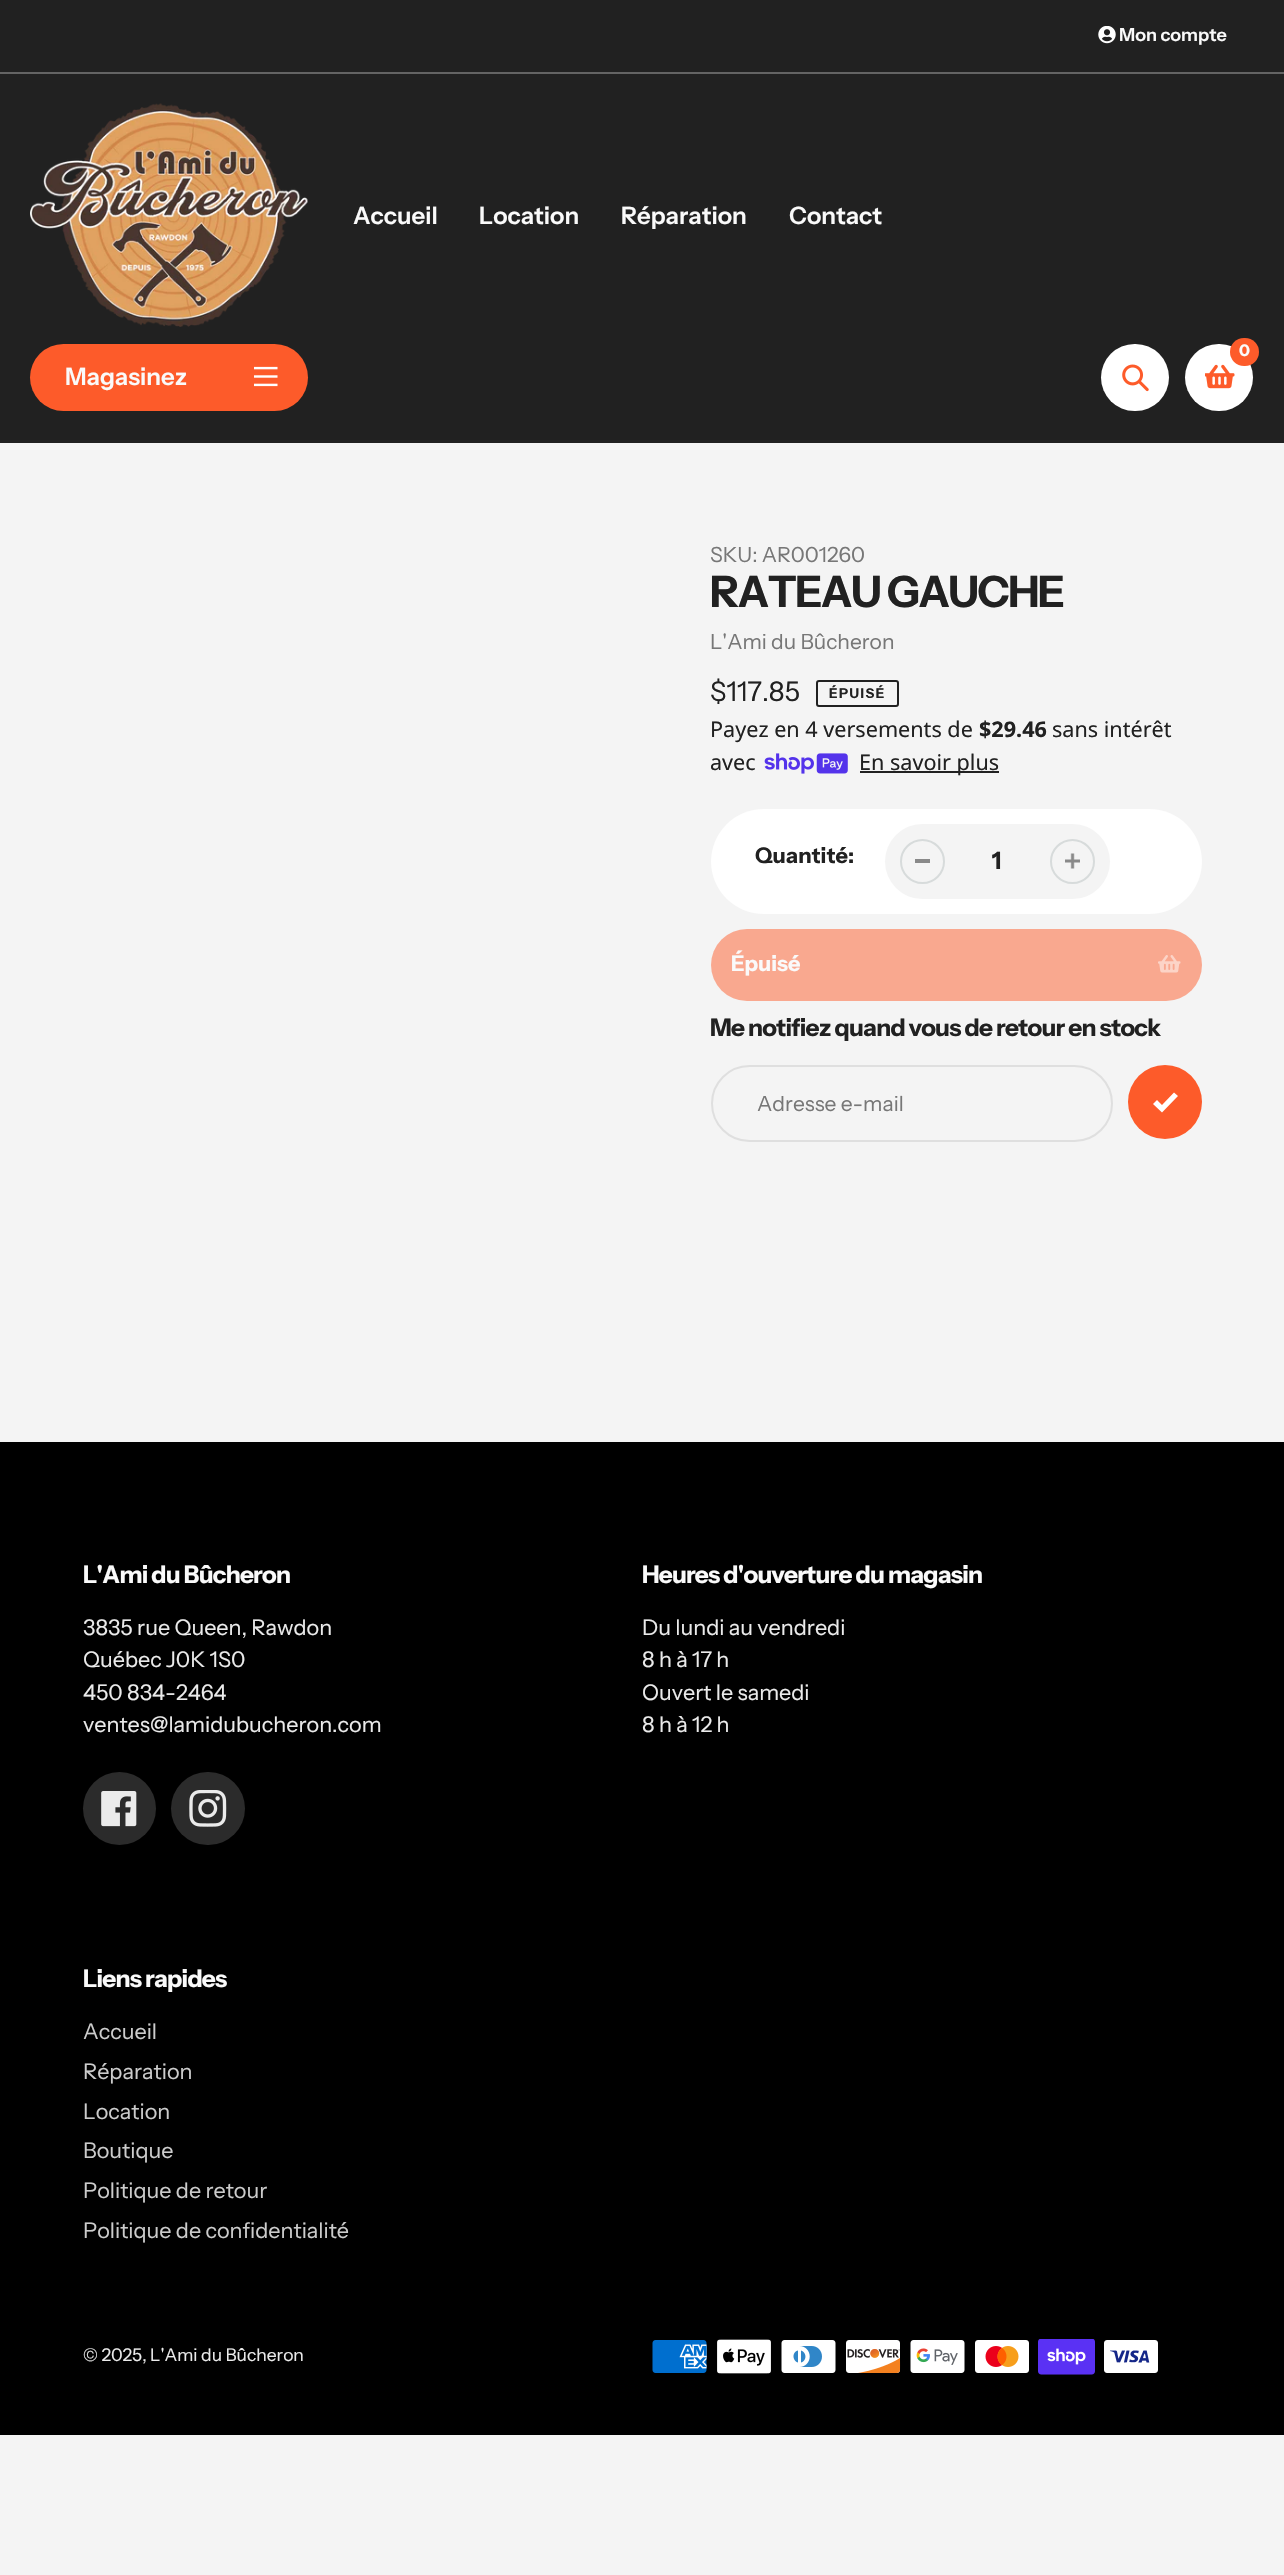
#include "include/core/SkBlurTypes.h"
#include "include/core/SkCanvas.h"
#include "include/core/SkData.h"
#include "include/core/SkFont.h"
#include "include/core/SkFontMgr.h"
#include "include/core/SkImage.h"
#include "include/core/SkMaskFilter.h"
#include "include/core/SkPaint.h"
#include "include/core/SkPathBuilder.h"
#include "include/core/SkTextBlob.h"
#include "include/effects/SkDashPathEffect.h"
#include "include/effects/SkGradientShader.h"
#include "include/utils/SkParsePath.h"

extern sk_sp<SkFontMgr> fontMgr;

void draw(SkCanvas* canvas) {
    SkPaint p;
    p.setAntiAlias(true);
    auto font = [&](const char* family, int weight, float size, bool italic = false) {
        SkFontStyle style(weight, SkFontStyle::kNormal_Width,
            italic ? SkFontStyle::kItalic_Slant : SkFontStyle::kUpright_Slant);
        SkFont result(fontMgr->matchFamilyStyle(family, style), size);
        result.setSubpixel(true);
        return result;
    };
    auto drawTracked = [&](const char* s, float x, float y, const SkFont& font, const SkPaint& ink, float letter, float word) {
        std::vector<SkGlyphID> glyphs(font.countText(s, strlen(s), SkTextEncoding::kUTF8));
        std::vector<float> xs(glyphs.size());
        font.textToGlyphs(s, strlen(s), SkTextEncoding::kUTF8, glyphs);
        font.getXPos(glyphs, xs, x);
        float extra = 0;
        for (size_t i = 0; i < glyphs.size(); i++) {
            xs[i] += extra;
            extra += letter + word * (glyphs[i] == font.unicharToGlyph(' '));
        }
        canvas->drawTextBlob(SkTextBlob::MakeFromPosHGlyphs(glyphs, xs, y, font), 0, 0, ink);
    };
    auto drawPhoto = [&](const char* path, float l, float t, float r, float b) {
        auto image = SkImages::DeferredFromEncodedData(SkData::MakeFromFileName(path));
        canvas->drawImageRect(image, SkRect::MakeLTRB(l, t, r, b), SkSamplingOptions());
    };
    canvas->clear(0xFFF4F4F4);
    p.setColor(0xFF212121);
    canvas->drawRect(SkRect::MakeLTRB(0, 0, 1284, 443), p);
    p.setColor(0xFF646464);
    canvas->drawRect(SkRect::MakeLTRB(0, 72, 1284, 74), p);
    drawPhoto("media/1.png", 1098, 26, 1116, 44);
    auto font1 = font("Instrument Sans", 600, 18);
    p.setColor(0xFFFAFAFA);
    canvas->drawString("Mon compte", 1119, 41, font1, p);
    drawPhoto("media/2.png", 30, 103, 308, 327);
    auto font2 = font("Instrument Sans", 600, 24);
    {
        const struct { const char* s; float x, y; } items[] = {
            {"Accueil", 353, 224},
            {"Location", 479, 224},
            {"Réparation", 621, 224},
            {"Contact", 789, 224},
        };
        for (auto [s, x, y] : items) {
            canvas->drawString(s, x, y, font2, p);
        }
    }
    p.setColor(0xFFFFFFFF);
    canvas->drawRoundRect(SkRect::MakeLTRB(1101, 344, 1169, 411), 33.5f, 33.5f, p);
    drawPhoto("media/3.png", 1122, 364, 1149, 392);
    canvas->drawRoundRect(SkRect::MakeLTRB(1185, 344, 1253, 411), 33.5f, 33.5f, p);
    drawPhoto("media/4.png", 1205, 364, 1235, 389);
    p.setColor(0xFFFD5B2A);
    canvas->drawRoundRect(SkRect::MakeLTRB(1230, 338, 1259, 366), 14, 14, p);
    auto font3 = font("Instrument Sans", 700, 16);
    p.setColor(0xFFFAFAFA);
    canvas->drawString("0", 1239, 356, font3, p);
    p.setColor(0xFFFD5B2A);
    canvas->drawRoundRect(SkRect::MakeLTRB(30, 344, 308, 411), 33.5f, 33.5f, p);
    p.setColor(0xFFFAFAFA);
    canvas->drawString("Magasinez", 65, 385, font2, p);
    drawPhoto("media/5.png", 254, 366, 278, 387);
    auto font4 = font("Instrument Sans", 400, 21);
    p.setColor(0xFF777777);
    canvas->drawString("SKU: AR001260", 710, 562, font4, p);
    auto font5 = font("Instrument Sans", 700, 43.25f);
    p.setColor(0xFF212121);
    drawTracked("RATEAU GAUCHE", 710, 607, font5, p, -1.5f, 0);
    p.setColor(0xFF777777);
    canvas->drawString("L'Ami du Bûcheron", 710, 649, font4, p);
    auto font6 = font("Instrument Sans", 400, 27);
    p.setColor(0xFF212121);
    canvas->drawString("$117.85", 710, 701, font6, p);
    p.setStyle(SkPaint::kStroke_Style);
    p.setStrokeWidth(2);
    canvas->drawRoundRect(SkRect::MakeLTRB(817, 681, 898, 706), 2, 2, p);
    auto font7 = font("Instrument Sans", 700, 13.5f);
    p.setStyle(SkPaint::kFill_Style);
    drawTracked("ÉPUISÉ", 829, 698, font7, p, 1.5f, 0);
    auto font8 = font("Noto Sans", 400, 21.6f);
    canvas->drawString("Payez en 4 versements de", 710, 737, font8, p);
    auto font9 = font("Noto Sans", 700, 21.6f);
    canvas->drawString("$29.46", 979, 737, font9, p);
    canvas->drawString("sans intérêt", 1052, 737, font8, p);
    canvas->drawString("avec", 710, 770, font8, p);
    drawPhoto("media/6.png", 764, 753, 848, 774);
    canvas->drawRect(SkRect::MakeLTRB(860, 771, 999, 773), p);
    canvas->drawString("En savoir plus", 859, 770, font8, p);
    p.setColor(0xFFFFFFFF);
    canvas->drawRoundRect(SkRect::MakeLTRB(711, 809, 1202, 914), 52.5f, 52.5f, p);
    auto font10 = font("Instrument Sans", 700, 21.6f);
    p.setColor(0xFF212121);
    canvas->drawString("Quantité:", 755, 863, font10, p);
    p.setColor(0xFFF4F4F4);
    canvas->drawRoundRect(SkRect::MakeLTRB(885, 824, 1110, 899), 37.5f, 37.5f, p);
    p.setColor(0xFF898989);
    canvas->drawRect(SkRect::MakeLTRB(915, 859, 930, 863), p);
    p.setStyle(SkPaint::kStroke_Style);
    p.setColor(0xFFD7DBDB);
    canvas->drawCircle(922.5f, 861.5f, 21.5f, p);
    auto font11 = font("Instrument Sans", 700, 24);
    p.setStyle(SkPaint::kFill_Style);
    p.setColor(0xFF212121);
    canvas->drawString("1", 992, 869, font11, p);
    drawPhoto("media/7.png", 1065, 853, 1080, 869);
    p.setStyle(SkPaint::kStroke_Style);
    p.setColor(0xFFD7DBDB);
    canvas->drawCircle(1072.5f, 861.5f, 21.5f, p);
    p.setStyle(SkPaint::kFill_Style);
    p.setColor(0xFFF9A88F);
    canvas->drawRoundRect(SkRect::MakeLTRB(711, 929, 1202, 1001), 36, 36, p);
    p.setColor(0xFFFAFAFA);
    canvas->drawString("Épuisé", 731, 971, font10, p);
    drawPhoto("media/8.png", 1158, 955, 1181, 973);
    auto font12 = font("Instrument Sans", 700, 24.25f);
    p.setColor(0xFF212121);
    drawTracked("Me notifiez quand vous de retour en stock", 710, 1036, font12, p, -0.75f, 0);
    p.setStyle(SkPaint::kStroke_Style);
    p.setColor(0xFFDFDFDF);
    canvas->drawRoundRect(SkRect::MakeLTRB(712, 1066, 1112, 1141), 37.5f, 37.5f, p);
    p.setStyle(SkPaint::kFill_Style);
    p.setColor(0xFF777777);
    canvas->drawString("Adresse e-mail", 757, 1111, font4, p);
    p.setColor(0xFFFD5B2A);
    canvas->drawCircle(1165, 1102, 37, p);
    p.setColor(0xFFFFFFFF);
    canvas->drawPath(SkPathBuilder().moveTo(1162, 1112.5f).lineTo(1153, 1104).lineTo(1157, 1100).lineTo(1162, 1105).lineTo(1174, 1092.5f).lineTo(1178, 1096).close().detach(), p);
    p.setColor(0xFF000000);
    canvas->drawRect(SkRect::MakeLTRB(0, 1442, 1284, 2435), p);
    p.setColor(0xFFFAFAFA);
    drawTracked("L'Ami du Bûcheron", 83, 1583, font12, p, -0.75f, 0);
    auto font13 = font("Instrument Sans", 400, 21.6f);
    p.setColor(0xFFEBEBEB);
    {
        const struct { const char* s; float x, y; } items[] = {
            {"3835 rue Queen, Rawdon", 83, 1635},
            {"Québec J0K 1S0", 83, 1667},
            {"450 834-2464", 83, 1700},
            {"ventes@lamidubucheron.com", 83, 1732},
        };
        for (auto [s, x, y] : items) {
            canvas->drawString(s, x, y, font13, p);
        }
    }
    p.setColor(0xFF2B2B2B);
    canvas->drawCircle(119.5f, 1808.5f, 36.5f, p);
    drawPhoto("media/9.png", 101, 1791, 137, 1827);
    canvas->drawRoundRect(SkRect::MakeLTRB(171, 1772, 245, 1845), 36.5f, 36.5f, p);
    drawPhoto("media/10.png", 189, 1790, 227, 1827);
    p.setColor(0xFFFAFAFA);
    drawTracked("Heures d'ouverture du magasin", 642, 1583, font12, p, -0.75f, 0);
    p.setColor(0xFFEBEBEB);
    {
        const struct { const char* s; float x, y; } items[] = {
            {"Du lundi au vendredi", 642, 1635},
            {"8 h à 17 h", 642, 1667},
            {"Ouvert le samedi", 642, 1700},
            {"8 h à 12 h", 642, 1732},
        };
        for (auto [s, x, y] : items) {
            canvas->drawString(s, x, y, font13, p);
        }
    }
    p.setColor(0xFFFAFAFA);
    drawTracked("Liens rapides", 83, 1987, font12, p, -0.75f, 0);
    p.setColor(0xFFCCCCCC);
    {
        const struct { const char* s; float x, y; } items[] = {
            {"Accueil", 83, 2039},
            {"Réparation", 83, 2079},
            {"Location", 83, 2119},
            {"Boutique", 83, 2158},
            {"Politique de retour", 83, 2198},
            {"Politique de confidentialité", 83, 2238},
        };
        for (auto [s, x, y] : items) {
            canvas->drawString(s, x, y, font13, p);
        }
    }
    auto font14 = font("Instrument Sans", 400, 17.5f);
    p.setColor(0xFFEBEBEB);
    canvas->drawString("© 2025, L'Ami du Bûcheron", 83, 2361, font14, p);
    drawPhoto("media/11.png", 652, 2340, 707, 2373);
    drawPhoto("media/12.png", 717, 2339, 771, 2374);
    drawPhoto("media/13.png", 781, 2340, 836, 2373);
    drawPhoto("media/14.png", 846, 2340, 901, 2373);
    drawPhoto("media/15.png", 910, 2340, 965, 2373);
    drawPhoto("media/16.png", 975, 2340, 1029, 2373);
    drawPhoto("media/17.png", 1038, 2339, 1095, 2375);
    drawPhoto("media/18.png", 1104, 2340, 1158, 2373);
}
